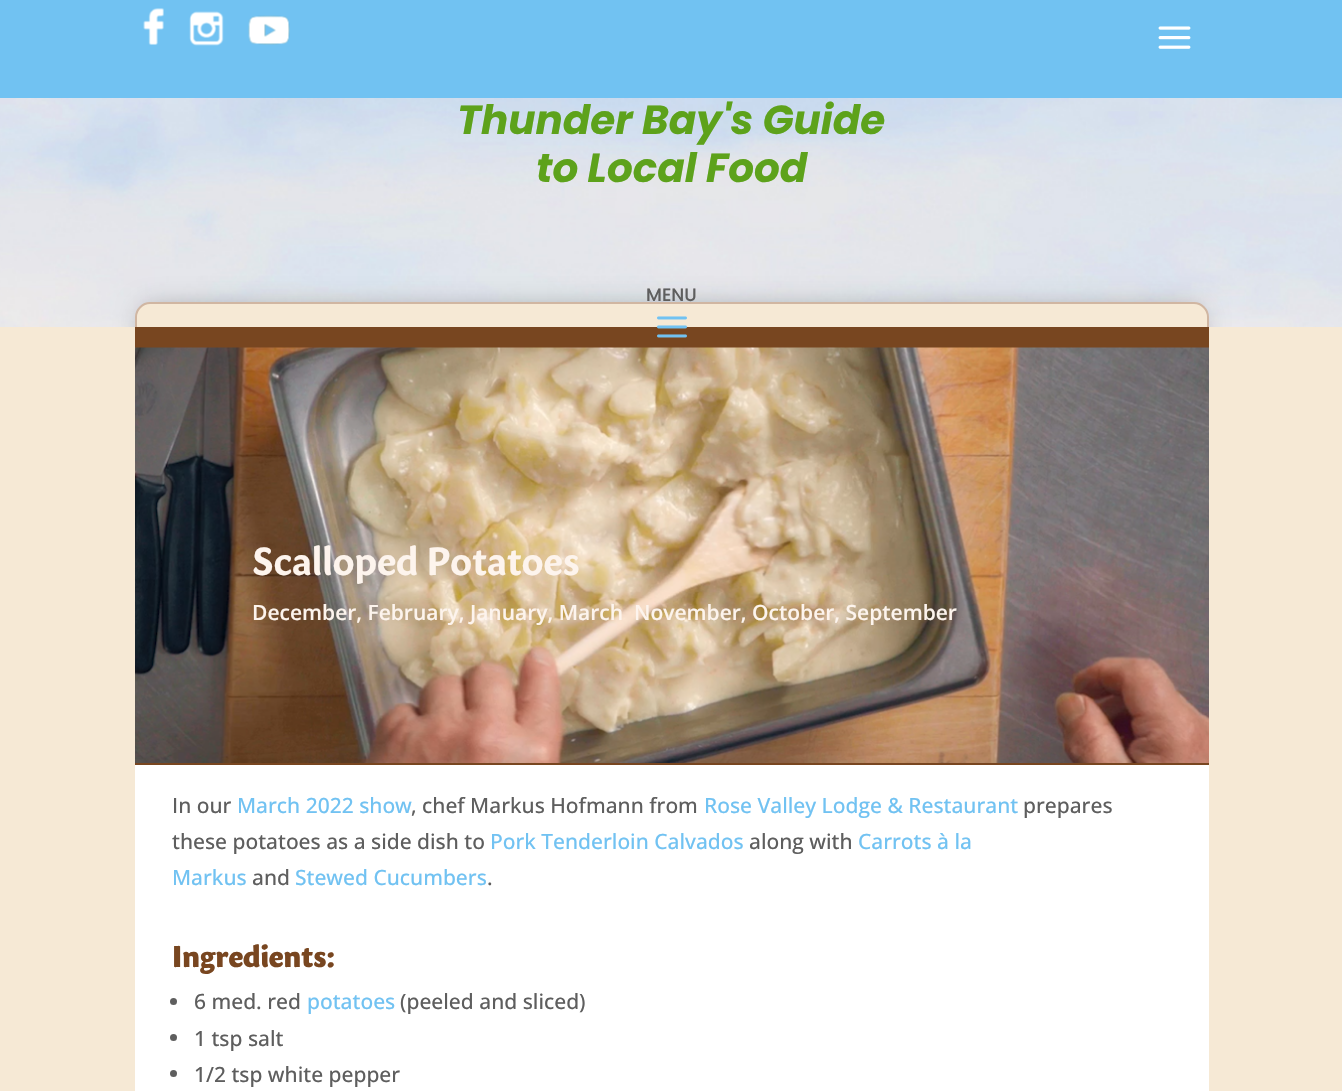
#include "include/core/SkBlurTypes.h"
#include "include/core/SkCanvas.h"
#include "include/core/SkData.h"
#include "include/core/SkFont.h"
#include "include/core/SkFontMgr.h"
#include "include/core/SkImage.h"
#include "include/core/SkMaskFilter.h"
#include "include/core/SkPaint.h"
#include "include/core/SkPathBuilder.h"
#include "include/core/SkTextBlob.h"
#include "include/effects/SkDashPathEffect.h"
#include "include/effects/SkGradientShader.h"
#include "include/utils/SkParsePath.h"

extern sk_sp<SkFontMgr> fontMgr;

void draw(SkCanvas* canvas) {
    SkPaint p;
    p.setAntiAlias(true);
    auto font = [&](const char* family, int weight, float size, bool italic = false) {
        SkFontStyle style(weight, SkFontStyle::kNormal_Width,
            italic ? SkFontStyle::kItalic_Slant : SkFontStyle::kUpright_Slant);
        SkFont result(fontMgr->matchFamilyStyle(family, style), size);
        result.setSubpixel(true);
        return result;
    };
    auto drawPhoto = [&](const char* path, float l, float t, float r, float b) {
        auto image = SkImages::DeferredFromEncodedData(SkData::MakeFromFileName(path));
        canvas->drawImageRect(image, SkRect::MakeLTRB(l, t, r, b), SkSamplingOptions());
    };
    canvas->clear(0xFFFFFFFF);
    p.setColor(0xFF71C2F2);
    canvas->drawRect(SkRect::MakeLTRB(0, 0, 1342, 98), p);
    drawPhoto("media/1.png", 143, 8, 164, 45);
    drawPhoto("media/2.png", 189, 11, 224, 46);
    drawPhoto("media/3.png", 248, 15, 290, 45);
    drawPhoto("media/4.png", 1158, 26, 1191, 49);
    drawPhoto("media/5.png", 0, 98, 1342, 327);
    auto font1 = font("Poppins", 700, 40.5f, true);
    p.setColor(0xFF5DA21B);
    canvas->drawString("Thunder Bay's Guide", 457, 134, font1, p);
    canvas->drawString("to Local Food", 536, 182, font1, p);
    p.setColor(0x4D000000);
    p.setMaskFilter(SkMaskFilter::MakeBlur(kNormal_SkBlurStyle, 13.5f));
    canvas->drawRoundRect(SkRect::MakeLTRB(144, 308, 1200, 353), 6, 6, p);
    p.setMaskFilter(nullptr);
    p.setColor(0xFFF6E9D5);
    canvas->drawPath(SkPathBuilder().moveTo(150, 303).lineTo(1194, 303).cubicTo(1201.5f, 303, 1208, 309.5f, 1208, 317).lineTo(1208, 364).lineTo(136, 364).lineTo(136, 317).cubicTo(136, 309.5f, 142.5f, 303, 150, 303).close().detach(), p);
    p.setStyle(SkPaint::kStroke_Style);
    p.setStrokeWidth(2);
    p.setColor(0xFFD0B6A2);
    canvas->drawPath(SkPathBuilder().moveTo(150, 303).lineTo(1194, 303).cubicTo(1201.5f, 303, 1208, 309.5f, 1208, 317).lineTo(1208, 364).lineTo(136, 364).lineTo(136, 317).cubicTo(136, 309.5f, 142.5f, 303, 150, 303).close().detach(), p);
    auto font2 = font("Poppins", 500, 18);
    p.setStyle(SkPaint::kFill_Style);
    p.setColor(0xFF5E5E5E);
    canvas->drawString("MENU", 646, 301, font2, p);
    p.setColor(0xFFF6E9D5);
    canvas->drawRect(SkRect::MakeLTRB(0, 327, 1342, 1091), p);
    p.setColor(0xFF784620);
    canvas->drawRect(SkRect::MakeLTRB(135, 327, 1209, 765), p);
    drawPhoto("media/6.png", 657, 316, 687, 338);
    drawPhoto("media/7.png", 135, 347, 1209, 763);
    auto font3 = font("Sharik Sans", 700, 39);
    p.setColor(0xFFFDF4ED);
    canvas->drawString("Scalloped Potatoes", 252, 575, font3, p);
    auto font4 = font("Open Sans", 600, 21);
    canvas->drawString("December, February, January, March", 252, 620, font4, p);
    canvas->drawString("November, October, September", 634, 620, font4, p);
    p.setColor(0xFFFFFFFF);
    canvas->drawRect(SkRect::MakeLTRB(135, 765, 1209, 1091), p);
    auto font5 = font("Open Sans", 500, 21);
    p.setColor(0xFF5E5E5E);
    canvas->drawString("In our", 172, 813, font5, p);
    p.setColor(0xFF71C2F2);
    canvas->drawString("March 2022 show", 237, 813, font5, p);
    p.setColor(0xFF5E5E5E);
    canvas->drawString(", chef Markus Hofmann from", 411, 813, font5, p);
    p.setColor(0xFF71C2F2);
    canvas->drawString("Rose Valley Lodge & Restaurant", 704, 813, font5, p);
    p.setColor(0xFF5E5E5E);
    canvas->drawString("prepares", 1023, 813, font5, p);
    canvas->drawString("these potatoes as a side dish to", 172, 849, font5, p);
    p.setColor(0xFF71C2F2);
    canvas->drawString("Pork Tenderloin Calvados", 490, 849, font5, p);
    p.setColor(0xFF5E5E5E);
    canvas->drawString("along with", 749, 849, font5, p);
    p.setColor(0xFF71C2F2);
    canvas->drawString("Carrots à la", 858, 849, font5, p);
    canvas->drawString("Markus", 172, 885, font5, p);
    p.setColor(0xFF5E5E5E);
    canvas->drawString("and", 252, 885, font5, p);
    p.setColor(0xFF71C2F2);
    canvas->drawString("Stewed Cucumbers", 295, 885, font5, p);
    p.setColor(0xFF5E5E5E);
    canvas->drawString(".", 487, 885, font5, p);
    auto font6 = font("Sharik Sans", 900, 30);
    p.setColor(0xFF784620);
    canvas->drawString("Ingredients:", 172, 967, font6, p);
    p.setColor(0xFF5E5E5E);
    canvas->drawCircle(173.5f, 1001.5f, 3.5f, p);
    canvas->drawString("6 med. red", 194, 1009, font5, p);
    p.setColor(0xFF71C2F2);
    canvas->drawString("potatoes", 307, 1009, font5, p);
    p.setColor(0xFF5E5E5E);
    canvas->drawString("(peeled and sliced)", 400, 1009, font5, p);
    canvas->drawCircle(173.5f, 1037.5f, 3.5f, p);
    canvas->drawString("1 tsp salt", 194, 1046, font5, p);
    canvas->drawCircle(173.5f, 1073.5f, 3.5f, p);
    canvas->drawString("1/2 tsp white pepper", 194, 1082, font5, p);
}
